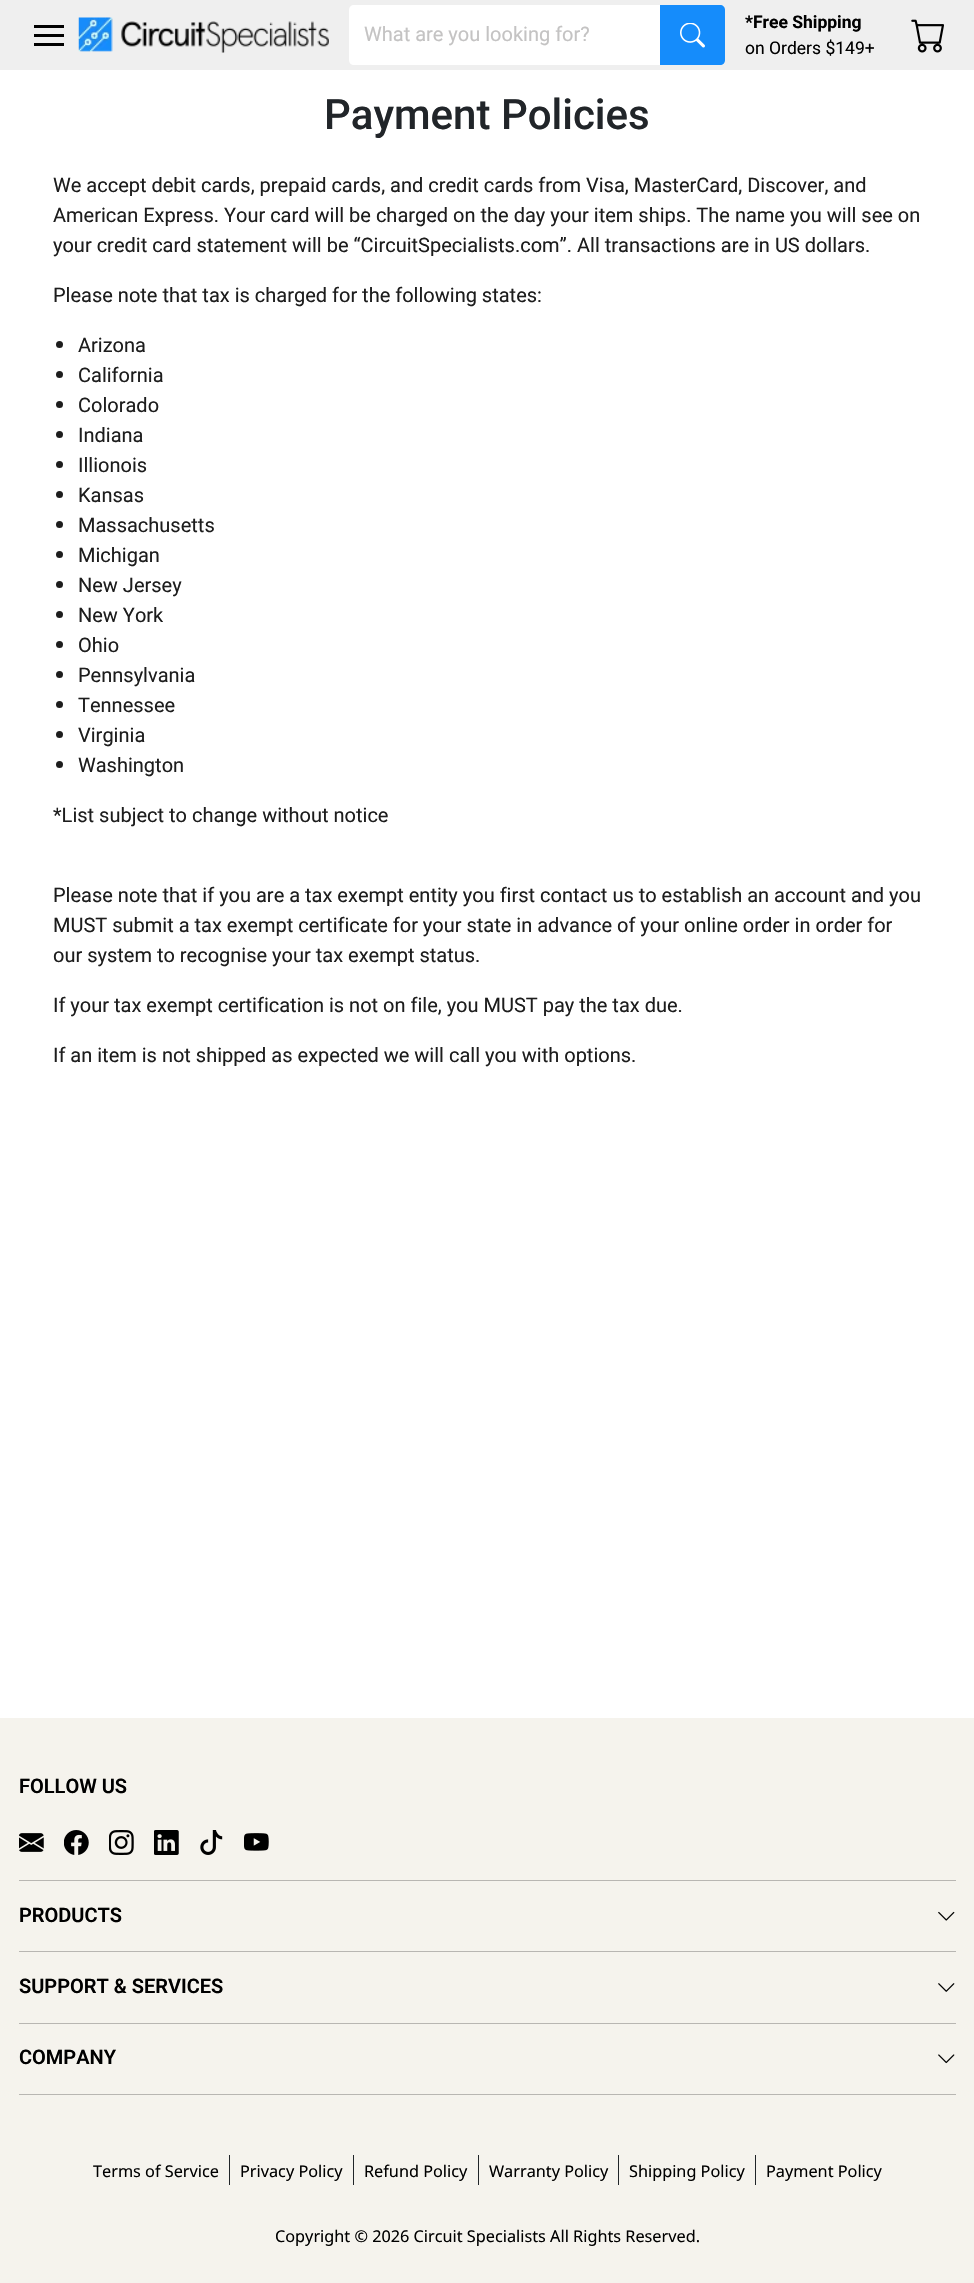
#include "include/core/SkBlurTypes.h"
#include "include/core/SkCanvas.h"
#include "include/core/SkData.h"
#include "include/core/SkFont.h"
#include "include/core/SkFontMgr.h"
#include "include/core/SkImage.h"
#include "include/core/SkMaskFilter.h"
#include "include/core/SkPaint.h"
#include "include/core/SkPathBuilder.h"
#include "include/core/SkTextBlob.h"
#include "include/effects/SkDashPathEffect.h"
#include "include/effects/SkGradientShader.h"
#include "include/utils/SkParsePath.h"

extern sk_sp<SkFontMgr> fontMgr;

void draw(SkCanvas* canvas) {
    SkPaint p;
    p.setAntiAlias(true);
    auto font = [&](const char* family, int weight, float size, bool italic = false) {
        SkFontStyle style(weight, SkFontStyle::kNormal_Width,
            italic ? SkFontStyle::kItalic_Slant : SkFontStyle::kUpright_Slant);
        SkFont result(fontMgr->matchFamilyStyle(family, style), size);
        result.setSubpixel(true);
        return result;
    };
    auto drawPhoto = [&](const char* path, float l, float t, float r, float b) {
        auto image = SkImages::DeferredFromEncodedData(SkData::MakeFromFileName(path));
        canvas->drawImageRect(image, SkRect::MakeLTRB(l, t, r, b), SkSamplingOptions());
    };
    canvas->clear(0xFFFFFFFF);
    {
        const struct { float l, t, r, b; SkColor color; } items[] = {
            {0, 0, 974, 70, 0xFFEFEFEF},
            {34, 25, 64, 28, 0xFF000000},
            {34, 34, 64, 37, 0xFF000000},
            {34, 43, 64, 46, 0xFF000000},
        };
        for (auto [l, t, r, b, color] : items) {
            p.setColor(color);
            canvas->drawRect(SkRect::MakeLTRB(l, t, r, b), p);
        }
    }
    drawPhoto("media/1.png", 78, 17, 329, 53);
    p.setColor(0xFFFFFFFF);
    canvas->drawPath(SkPathBuilder().moveTo(354, 5).lineTo(661, 5).lineTo(661, 65).lineTo(354, 65).cubicTo(351, 65, 349, 63, 349, 60).lineTo(349, 10).cubicTo(349, 7, 351, 5, 354, 5).close().detach(), p);
    auto font1 = font("Roboto", 400, 20);
    p.setColor(0xFFC4C3C3);
    canvas->drawString("What are you looking for?", 364, 41, font1, p);
    p.setColor(0xFF158CFB);
    canvas->drawPath(SkPathBuilder().moveTo(660, 5).lineTo(720, 5).cubicTo(723, 5, 725, 7, 725, 10).lineTo(725, 60).cubicTo(725, 63, 723, 65, 720, 65).lineTo(660, 65).close().detach(), p);
    drawPhoto("media/2.png", 680, 23, 705, 48);
    auto font2 = font("Roboto", 700, 17.5f);
    p.setColor(0xFF000000);
    canvas->drawString("*Free Shipping", 745, 28, font2, p);
    auto font3 = font("Roboto", 400, 17.5f);
    canvas->drawString("on Orders $149+", 745, 54, font3, p);
    drawPhoto("media/3.png", 911, 19, 944, 53);
    auto font4 = font("Roboto", 500, 42);
    p.setColor(0xFF212529);
    canvas->drawString("Payment Policies", 324, 129, font4, p);
    p.setColor(0xFF1D1D1D);
    {
        const struct { const char* s; float x, y; } items[] = {
            {"We accept debit cards, prepaid cards, and credit cards from Visa, MasterCard, Discover, and", 53, 192},
            {"American Express. Your card will be charged on the day your item ships. The name you will see on", 53, 222},
            {"your credit card statement will be “CircuitSpecialists.com”. All transactions are in US dollars.", 53, 252},
            {"Please note that tax is charged for the following states:", 53, 302},
        };
        for (auto [s, x, y] : items) {
            canvas->drawString(s, x, y, font1, p);
        }
    }
    canvas->drawCircle(59.5f, 344.5f, 3.5f, p);
    canvas->drawString("Arizona", 78, 352, font1, p);
    canvas->drawCircle(59.5f, 374.5f, 3.5f, p);
    canvas->drawString("California", 78, 382, font1, p);
    canvas->drawCircle(59.5f, 404.5f, 3.5f, p);
    canvas->drawString("Colorado", 78, 412, font1, p);
    canvas->drawCircle(59.5f, 434.5f, 3.5f, p);
    canvas->drawString("Indiana", 78, 442, font1, p);
    canvas->drawCircle(59.5f, 464.5f, 3.5f, p);
    canvas->drawString("Illionois", 78, 472, font1, p);
    canvas->drawCircle(59.5f, 494.5f, 3.5f, p);
    canvas->drawString("Kansas", 78, 502, font1, p);
    canvas->drawCircle(59.5f, 524.5f, 3.5f, p);
    canvas->drawString("Massachusetts", 78, 532, font1, p);
    canvas->drawCircle(59.5f, 554.5f, 3.5f, p);
    canvas->drawString("Michigan", 78, 562, font1, p);
    canvas->drawCircle(59.5f, 584.5f, 3.5f, p);
    canvas->drawString("New Jersey", 78, 592, font1, p);
    canvas->drawCircle(59.5f, 614.5f, 3.5f, p);
    canvas->drawString("New York", 78, 622, font1, p);
    canvas->drawCircle(59.5f, 644.5f, 3.5f, p);
    canvas->drawString("Ohio", 78, 652, font1, p);
    canvas->drawCircle(59.5f, 674.5f, 3.5f, p);
    canvas->drawString("Pennsylvania", 78, 682, font1, p);
    canvas->drawCircle(59.5f, 704.5f, 3.5f, p);
    canvas->drawString("Tennessee", 78, 712, font1, p);
    canvas->drawCircle(59.5f, 734.5f, 3.5f, p);
    canvas->drawString("Virginia", 78, 742, font1, p);
    canvas->drawCircle(59.5f, 764.5f, 3.5f, p);
    {
        const struct { const char* s; float x, y; } items[] = {
            {"Washington", 78, 772},
            {"*List subject to change without notice", 53, 822},
            {"Please note that if you are a tax exempt entity you first contact us to establish an account and you", 53, 902},
            {"MUST submit a tax exempt certificate for your state in advance of your online order in order for", 53, 932},
            {"our system to recognise your tax exempt status.", 53, 962},
            {"If your tax exempt certification is not on file, you MUST pay the tax due.", 53, 1012},
            {"If an item is not shipped as expected we will call you with options.", 53, 1062},
        };
        for (auto [s, x, y] : items) {
            canvas->drawString(s, x, y, font1, p);
        }
    }
    p.setColor(0xFFF5F3ED);
    canvas->drawRect(SkRect::MakeLTRB(0, 1718, 974, 2283), p);
    auto font5 = font("Roboto", 600, 20);
    p.setColor(0xFF000000);
    canvas->drawString("FOLLOW US", 19, 1793, font5, p);
    drawPhoto("media/4.png", 19, 1833, 44, 1852);
    drawPhoto("media/5.png", 64, 1830, 89, 1855);
    drawPhoto("media/6.png", 109, 1830, 134, 1855);
    drawPhoto("media/7.png", 154, 1830, 179, 1855);
    drawPhoto("media/8.png", 200, 1830, 223, 1855);
    drawPhoto("media/9.png", 244, 1833, 269, 1851);
    p.setColor(0xFFB8B6B2);
    canvas->drawRect(SkRect::MakeLTRB(19, 1880, 956, 1881), p);
    p.setColor(0xFF000000);
    canvas->drawString("PRODUCTS", 19, 1922, font5, p);
    drawPhoto("media/10.png", 938, 1911, 955, 1921);
    p.setColor(0xFFB8B6B2);
    canvas->drawRect(SkRect::MakeLTRB(19, 1951, 956, 1952), p);
    p.setColor(0xFF000000);
    canvas->drawString("SUPPORT & SERVICES", 19, 1993, font5, p);
    drawPhoto("media/11.png", 938, 1983, 955, 1992);
    p.setColor(0xFFB8B6B2);
    canvas->drawRect(SkRect::MakeLTRB(19, 2023, 956, 2024), p);
    p.setColor(0xFF000000);
    canvas->drawString("COMPANY", 19, 2064, font5, p);
    drawPhoto("media/12.png", 938, 2054, 955, 2064);
    p.setColor(0xFFB8B6B2);
    canvas->drawRect(SkRect::MakeLTRB(19, 2094, 956, 2095), p);
    p.setColor(0xFF212529);
    canvas->drawRect(SkRect::MakeLTRB(229, 2155, 230, 2185), p);
    auto font6 = font("Noto Sans", 400, 16.25f);
    p.setColor(0xFF000000);
    canvas->drawString("Terms of Service", 93, 2177, font6, p);
    p.setColor(0xFF212529);
    canvas->drawRect(SkRect::MakeLTRB(353, 2155, 354, 2185), p);
    p.setColor(0xFF000000);
    canvas->drawString("Privacy Policy", 240, 2177, font6, p);
    p.setColor(0xFF212529);
    canvas->drawRect(SkRect::MakeLTRB(478, 2155, 479, 2185), p);
    p.setColor(0xFF000000);
    canvas->drawString("Refund Policy", 364, 2177, font6, p);
    p.setColor(0xFF212529);
    canvas->drawRect(SkRect::MakeLTRB(618, 2155, 619, 2185), p);
    p.setColor(0xFF000000);
    canvas->drawString("Warranty Policy", 489, 2177, font6, p);
    p.setColor(0xFF212529);
    canvas->drawRect(SkRect::MakeLTRB(755, 2155, 756, 2185), p);
    p.setColor(0xFF000000);
    {
        const struct { const char* s; float x, y; } items[] = {
            {"Shipping Policy", 629, 2177},
            {"Payment Policy", 766, 2177},
            {"Copyright © 2026 Circuit Specialists All Rights Reserved.", 275, 2242},
        };
        for (auto [s, x, y] : items) {
            canvas->drawString(s, x, y, font6, p);
        }
    }
}
